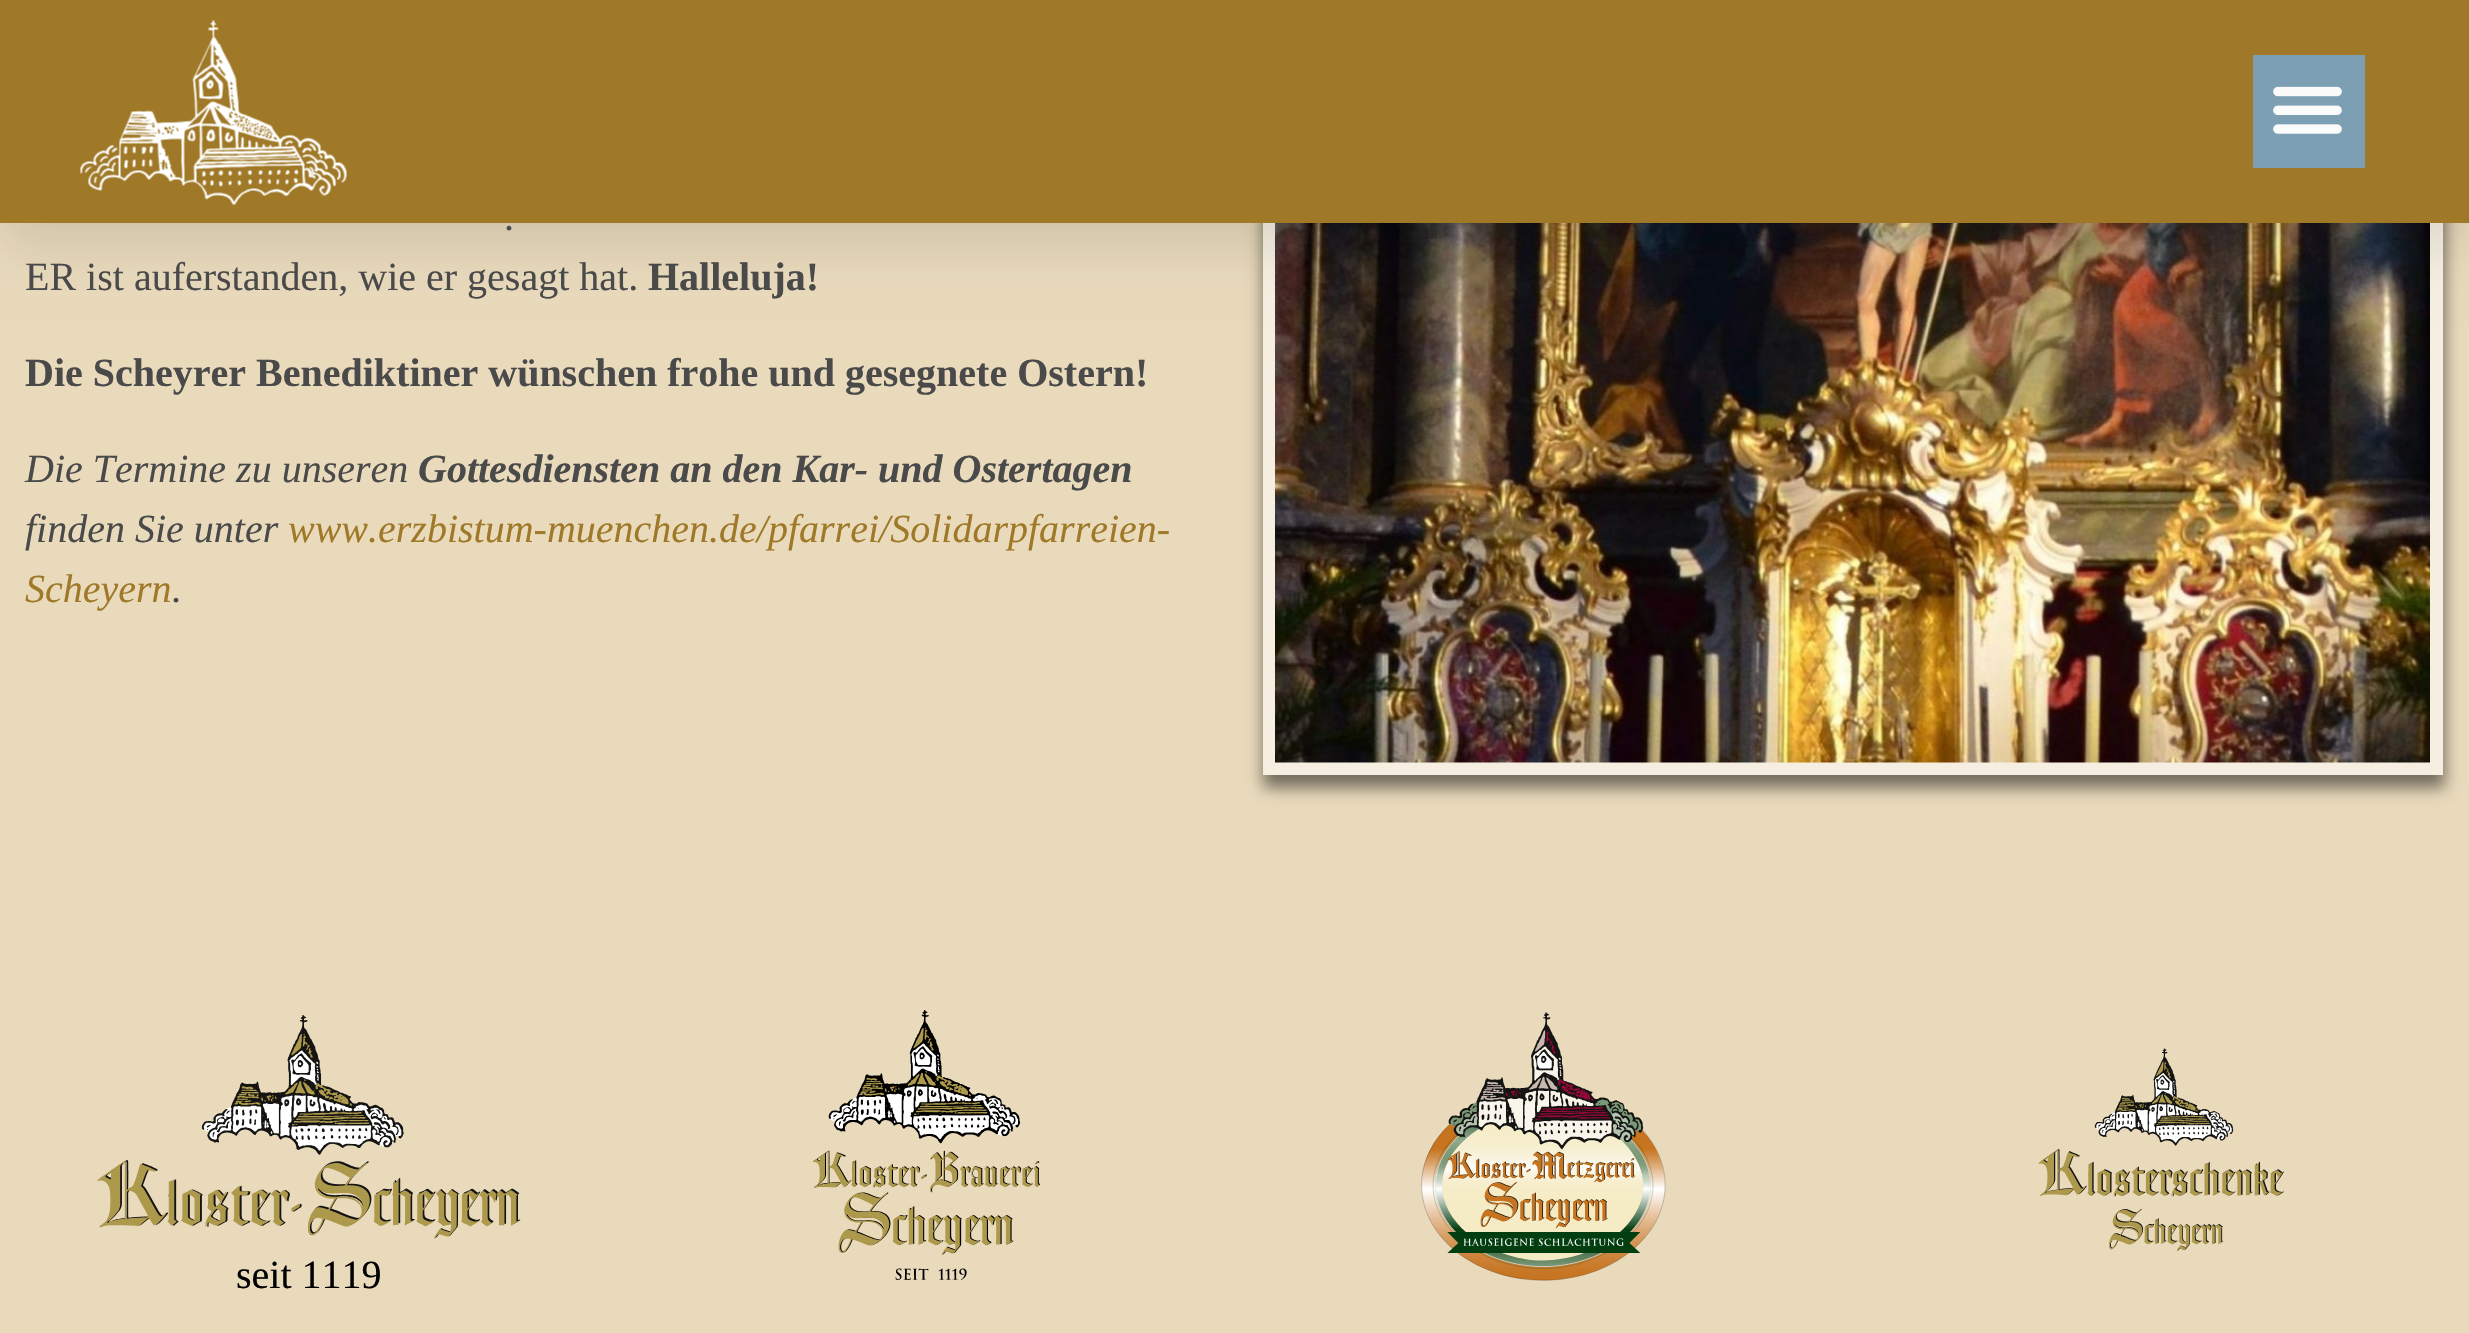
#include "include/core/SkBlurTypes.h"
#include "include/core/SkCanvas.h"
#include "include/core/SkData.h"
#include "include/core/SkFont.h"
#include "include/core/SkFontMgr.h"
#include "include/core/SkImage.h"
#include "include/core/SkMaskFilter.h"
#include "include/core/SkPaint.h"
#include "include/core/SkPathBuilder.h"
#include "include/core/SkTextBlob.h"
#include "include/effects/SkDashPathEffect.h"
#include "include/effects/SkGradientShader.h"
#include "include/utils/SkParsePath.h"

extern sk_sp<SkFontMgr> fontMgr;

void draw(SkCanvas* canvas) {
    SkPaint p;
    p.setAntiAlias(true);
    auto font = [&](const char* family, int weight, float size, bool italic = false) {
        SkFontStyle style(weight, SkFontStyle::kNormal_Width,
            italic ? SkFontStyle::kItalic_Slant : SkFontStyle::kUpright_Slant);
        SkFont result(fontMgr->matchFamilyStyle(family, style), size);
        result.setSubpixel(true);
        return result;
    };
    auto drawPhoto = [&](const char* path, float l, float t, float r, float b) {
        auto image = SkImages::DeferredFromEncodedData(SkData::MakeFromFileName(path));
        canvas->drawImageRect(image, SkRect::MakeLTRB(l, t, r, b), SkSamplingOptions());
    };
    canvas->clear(0xFFE9DABC);
    p.setColor(0x80000000);
    p.setMaskFilter(SkMaskFilter::MakeBlur(kNormal_SkBlurStyle, 7.5f));
    canvas->drawRect(SkRect::MakeLTRB(1263, -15, 2445, 788), p);
    p.setMaskFilter(nullptr);
    p.setStyle(SkPaint::kStroke_Style);
    p.setStrokeWidth(13);
    p.setColor(0xFFF6EFE1);
    canvas->drawRect(SkRect::MakeLTRB(1269.5f, -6.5f, 2436.5f, 768.5f), p);
    drawPhoto("media/3.png", 1275, 223, 2430, 763);
    p.setStyle(SkPaint::kFill_Style);
    p.setColor(0x1A000000);
    p.setMaskFilter(SkMaskFilter::MakeBlur(kNormal_SkBlurStyle, 25));
    canvas->drawRect(SkRect::MakeLTRB(0, 25, 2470, 248), p);
    p.setMaskFilter(nullptr);
    p.setColor(0xFFA07928);
    canvas->drawRect(SkRect::MakeLTRB(0, 0, 2469, 223), p);
    drawPhoto("media/1.png", 80, 20, 348, 206);
    p.setColor(0xFF7C9FB4);
    canvas->drawRect(SkRect::MakeLTRB(2253, 55, 2365, 168), p);
    drawPhoto("media/2.png", 2273, 86, 2342, 134);
    auto font1 = font("Liberation Serif", 400, 40);
    p.setColor(0xFF4A4A4A);
    canvas->drawString(".", 504, 230, font1, p);
    canvas->drawString("ER ist auferstanden, wie er gesagt hat.", 25, 290, font1, p);
    auto font2 = font("Liberation Serif", 700, 40);
    canvas->drawString("Halleluja!", 648, 290, font2, p);
    canvas->drawString("Die Scheyrer Benediktiner wünschen frohe und gesegnete Ostern!", 25, 386, font2, p);
    auto font3 = font("Liberation Serif", 400, 40, true);
    canvas->drawString("Die Termine zu unseren", 25, 482, font3, p);
    auto font4 = font("Liberation Serif", 700, 40, true);
    canvas->drawString("Gottesdiensten an den Kar- und Ostertagen", 418, 482, font4, p);
    canvas->drawString("finden Sie unter", 25, 542, font3, p);
    p.setColor(0xFFA07928);
    canvas->drawString("www.erzbistum-muenchen.de/pfarrei/Solidarpfarreien-", 288, 542, font3, p);
    canvas->drawString("Scheyern", 25, 602, font3, p);
    p.setColor(0xFF4A4A4A);
    canvas->drawString(".", 172, 602, font3, p);
    drawPhoto("media/4.png", 813, 1010, 1040, 1280);
    drawPhoto("media/5.png", 1421, 1012, 1666, 1281);
    drawPhoto("media/6.png", 2038, 1048, 2284, 1251);
    drawPhoto("media/7.png", 97, 1015, 521, 1239);
    p.setColor(0xFF000000);
    canvas->drawString("seit 1119", 236, 1288, font1, p);
}
